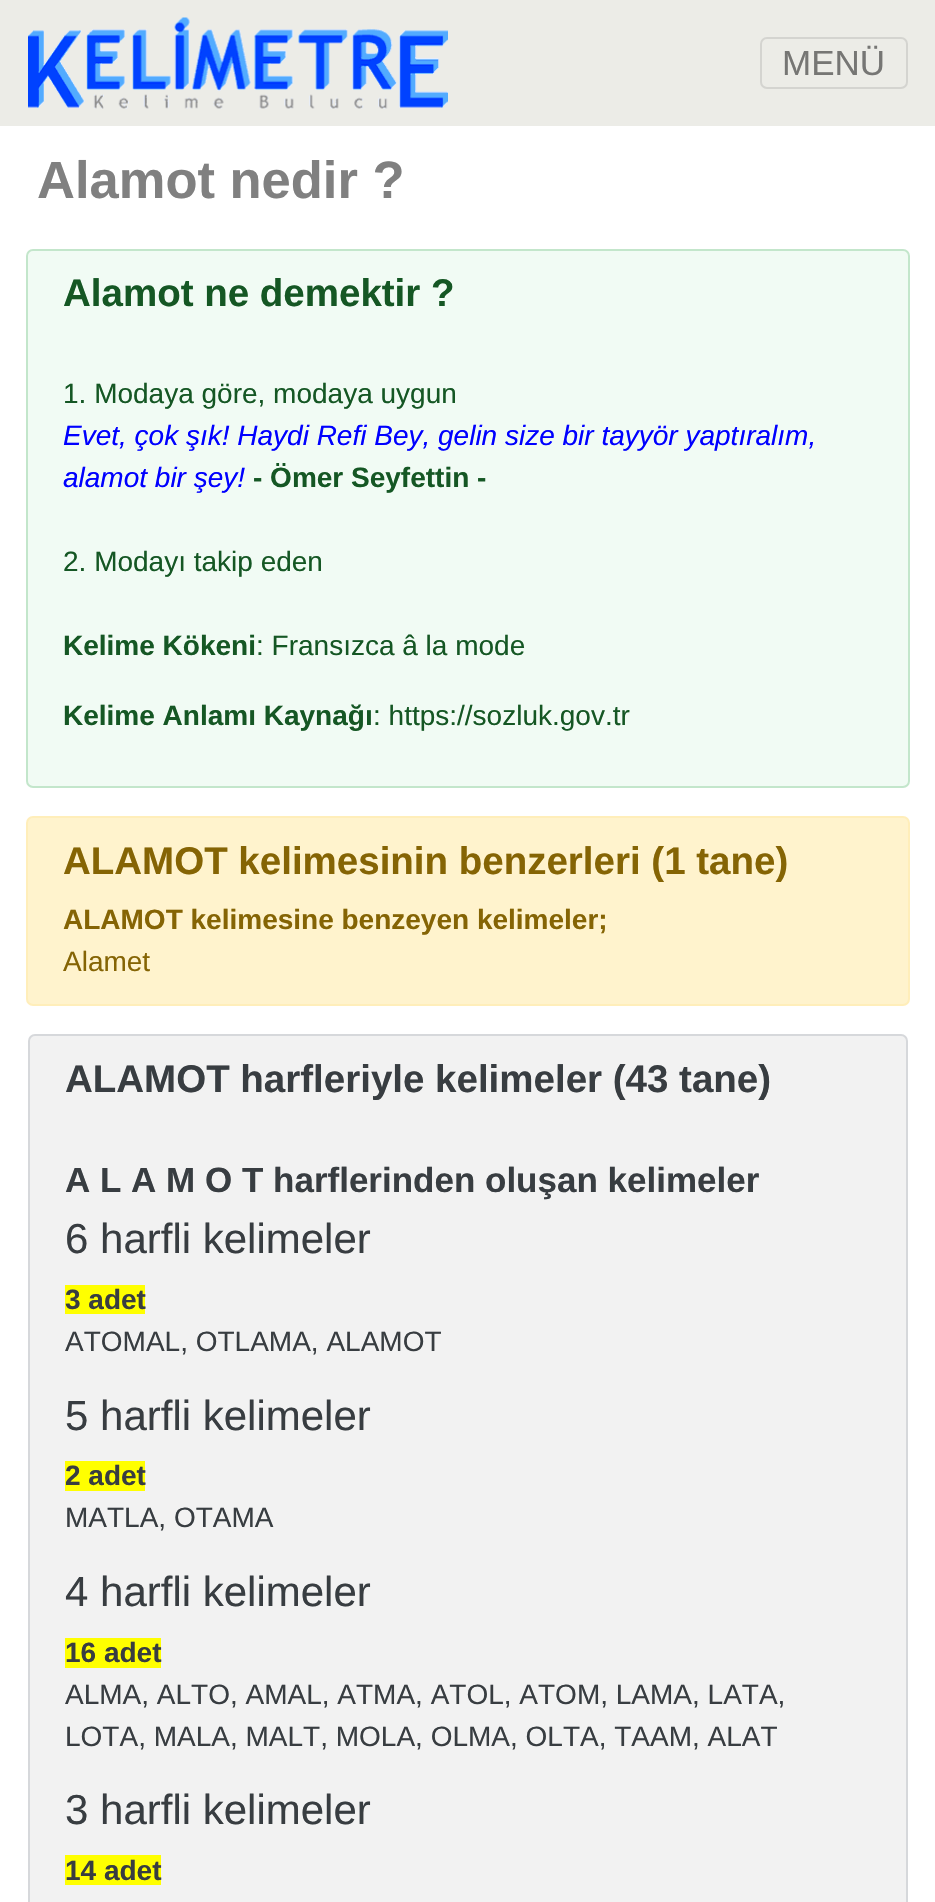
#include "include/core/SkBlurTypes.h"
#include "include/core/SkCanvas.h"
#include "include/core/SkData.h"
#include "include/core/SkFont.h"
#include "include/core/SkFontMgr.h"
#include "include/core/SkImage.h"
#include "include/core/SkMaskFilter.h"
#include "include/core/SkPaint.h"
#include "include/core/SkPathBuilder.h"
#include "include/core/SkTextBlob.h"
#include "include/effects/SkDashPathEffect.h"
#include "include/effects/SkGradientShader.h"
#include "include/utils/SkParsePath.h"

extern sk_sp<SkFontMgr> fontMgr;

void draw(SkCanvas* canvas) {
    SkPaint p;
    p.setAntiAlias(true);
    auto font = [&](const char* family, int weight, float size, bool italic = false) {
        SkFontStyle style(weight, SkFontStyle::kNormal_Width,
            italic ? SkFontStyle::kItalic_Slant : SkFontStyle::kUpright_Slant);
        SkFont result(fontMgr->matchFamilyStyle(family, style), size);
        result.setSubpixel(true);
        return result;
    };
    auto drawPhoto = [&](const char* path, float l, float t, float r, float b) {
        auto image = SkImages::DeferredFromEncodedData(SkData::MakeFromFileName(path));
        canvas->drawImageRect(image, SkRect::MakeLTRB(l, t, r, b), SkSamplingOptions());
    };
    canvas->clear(0xFFFFFFFF);
    p.setColor(0xFFECECE7);
    canvas->drawRect(SkRect::MakeLTRB(0, 0, 935, 126), p);
    drawPhoto("media/1.png", 28, 17, 448, 109);
    p.setStyle(SkPaint::kStroke_Style);
    p.setStrokeWidth(2);
    p.setColor(0xFFD4D4D0);
    canvas->drawRoundRect(SkRect::MakeLTRB(761, 38, 907, 88), 6, 6, p);
    auto font1 = font("Liberation Sans", 400, 35);
    p.setStyle(SkPaint::kFill_Style);
    p.setColor(0xFF767674);
    canvas->drawString("MENÜ", 782, 75, font1, p);
    auto font2 = font("Liberation Sans", 700, 52.5f);
    p.setColor(0xFF808080);
    canvas->drawString("Alamot nedir ?", 37, 198, font2, p);
    p.setColor(0xFFF1FBF4);
    canvas->drawRoundRect(SkRect::MakeLTRB(27, 250, 909, 787), 6, 6, p);
    p.setStyle(SkPaint::kStroke_Style);
    p.setColor(0xFFC3E6CB);
    canvas->drawRoundRect(SkRect::MakeLTRB(27, 250, 909, 787), 6, 6, p);
    auto font3 = font("Liberation Sans", 700, 38.5f);
    p.setStyle(SkPaint::kFill_Style);
    p.setColor(0xFF155724);
    canvas->drawString("Alamot ne demektir ?", 63, 306, font3, p);
    auto font4 = font("Liberation Sans", 400, 28);
    canvas->drawString("1. Modaya göre, modaya uygun", 63, 403, font4, p);
    auto font5 = font("Liberation Sans", 400, 28, true);
    p.setColor(0xFF0000FF);
    canvas->drawString("Evet, çok şık! Haydi Refi Bey, gelin size bir tayyör yaptıralım,", 63, 445, font5, p);
    canvas->drawString("alamot bir şey!", 63, 487, font5, p);
    auto font6 = font("Liberation Sans", 700, 28);
    p.setColor(0xFF155724);
    canvas->drawString("- Ömer Seyfettin -", 253, 487, font6, p);
    canvas->drawString("2. Modayı takip eden", 63, 571, font4, p);
    canvas->drawString("Kelime Kökeni", 63, 655, font6, p);
    canvas->drawString(": Fransızca â la mode", 256, 655, font4, p);
    canvas->drawString("Kelime Anlamı Kaynağı", 63, 725, font6, p);
    canvas->drawString(": https://sozluk.gov.tr", 373, 725, font4, p);
    p.setColor(0xFFFFF3CD);
    canvas->drawRoundRect(SkRect::MakeLTRB(27, 817, 909, 1005), 6, 6, p);
    p.setStyle(SkPaint::kStroke_Style);
    p.setColor(0xFFFFEEBA);
    canvas->drawRoundRect(SkRect::MakeLTRB(27, 817, 909, 1005), 6, 6, p);
    p.setStyle(SkPaint::kFill_Style);
    p.setColor(0xFF856404);
    canvas->drawString("ALAMOT kelimesinin benzerleri (1 tane)", 63, 874, font3, p);
    canvas->drawString("ALAMOT kelimesine benzeyen kelimeler;", 63, 929, font6, p);
    canvas->drawString("Alamet", 63, 971, font4, p);
    p.setColor(0xFFF2F2F2);
    canvas->drawRoundRect(SkRect::MakeLTRB(29, 1035, 907, 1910), 6, 6, p);
    p.setStyle(SkPaint::kStroke_Style);
    p.setColor(0xFFD6D8DB);
    canvas->drawRoundRect(SkRect::MakeLTRB(29, 1035, 907, 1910), 6, 6, p);
    p.setStyle(SkPaint::kFill_Style);
    p.setColor(0xFF383D41);
    canvas->drawString("ALAMOT harfleriyle kelimeler (43 tane)", 65, 1092, font3, p);
    auto font7 = font("Liberation Sans", 700, 35);
    canvas->drawString("A L A M O T harflerinden oluşan kelimeler", 65, 1192, font7, p);
    auto font8 = font("Liberation Sans", 400, 42);
    canvas->drawString("6 harfli kelimeler", 65, 1253, font8, p);
    p.setColor(0xFFFFFF00);
    canvas->drawRect(SkRect::MakeLTRB(65, 1285, 145, 1314), p);
    p.setColor(0xFF383D41);
    canvas->drawString("3 adet", 65, 1309, font6, p);
    canvas->drawString("ATOMAL, OTLAMA, ALAMOT", 65, 1351, font4, p);
    canvas->drawString("5 harfli kelimeler", 65, 1430, font8, p);
    p.setColor(0xFFFFFF00);
    canvas->drawRect(SkRect::MakeLTRB(65, 1461, 145, 1491), p);
    p.setColor(0xFF383D41);
    canvas->drawString("2 adet", 65, 1485, font6, p);
    canvas->drawString("MATLA, OTAMA", 65, 1527, font4, p);
    canvas->drawString("4 harfli kelimeler", 65, 1606, font8, p);
    p.setColor(0xFFFFFF00);
    canvas->drawRect(SkRect::MakeLTRB(65, 1638, 161, 1668), p);
    p.setColor(0xFF383D41);
    canvas->drawString("16 adet", 65, 1662, font6, p);
    canvas->drawString("ALMA, ALTO, AMAL, ATMA, ATOL, ATOM, LAMA, LATA,", 65, 1704, font4, p);
    canvas->drawString("LOTA, MALA, MALT, MOLA, OLMA, OLTA, TAAM, ALAT", 65, 1746, font4, p);
    canvas->drawString("3 harfli kelimeler", 65, 1824, font8, p);
    p.setColor(0xFFFFFF00);
    canvas->drawRect(SkRect::MakeLTRB(65, 1855, 161, 1885), p);
    p.setColor(0xFF383D41);
    canvas->drawString("14 adet", 65, 1880, font6, p);
}
